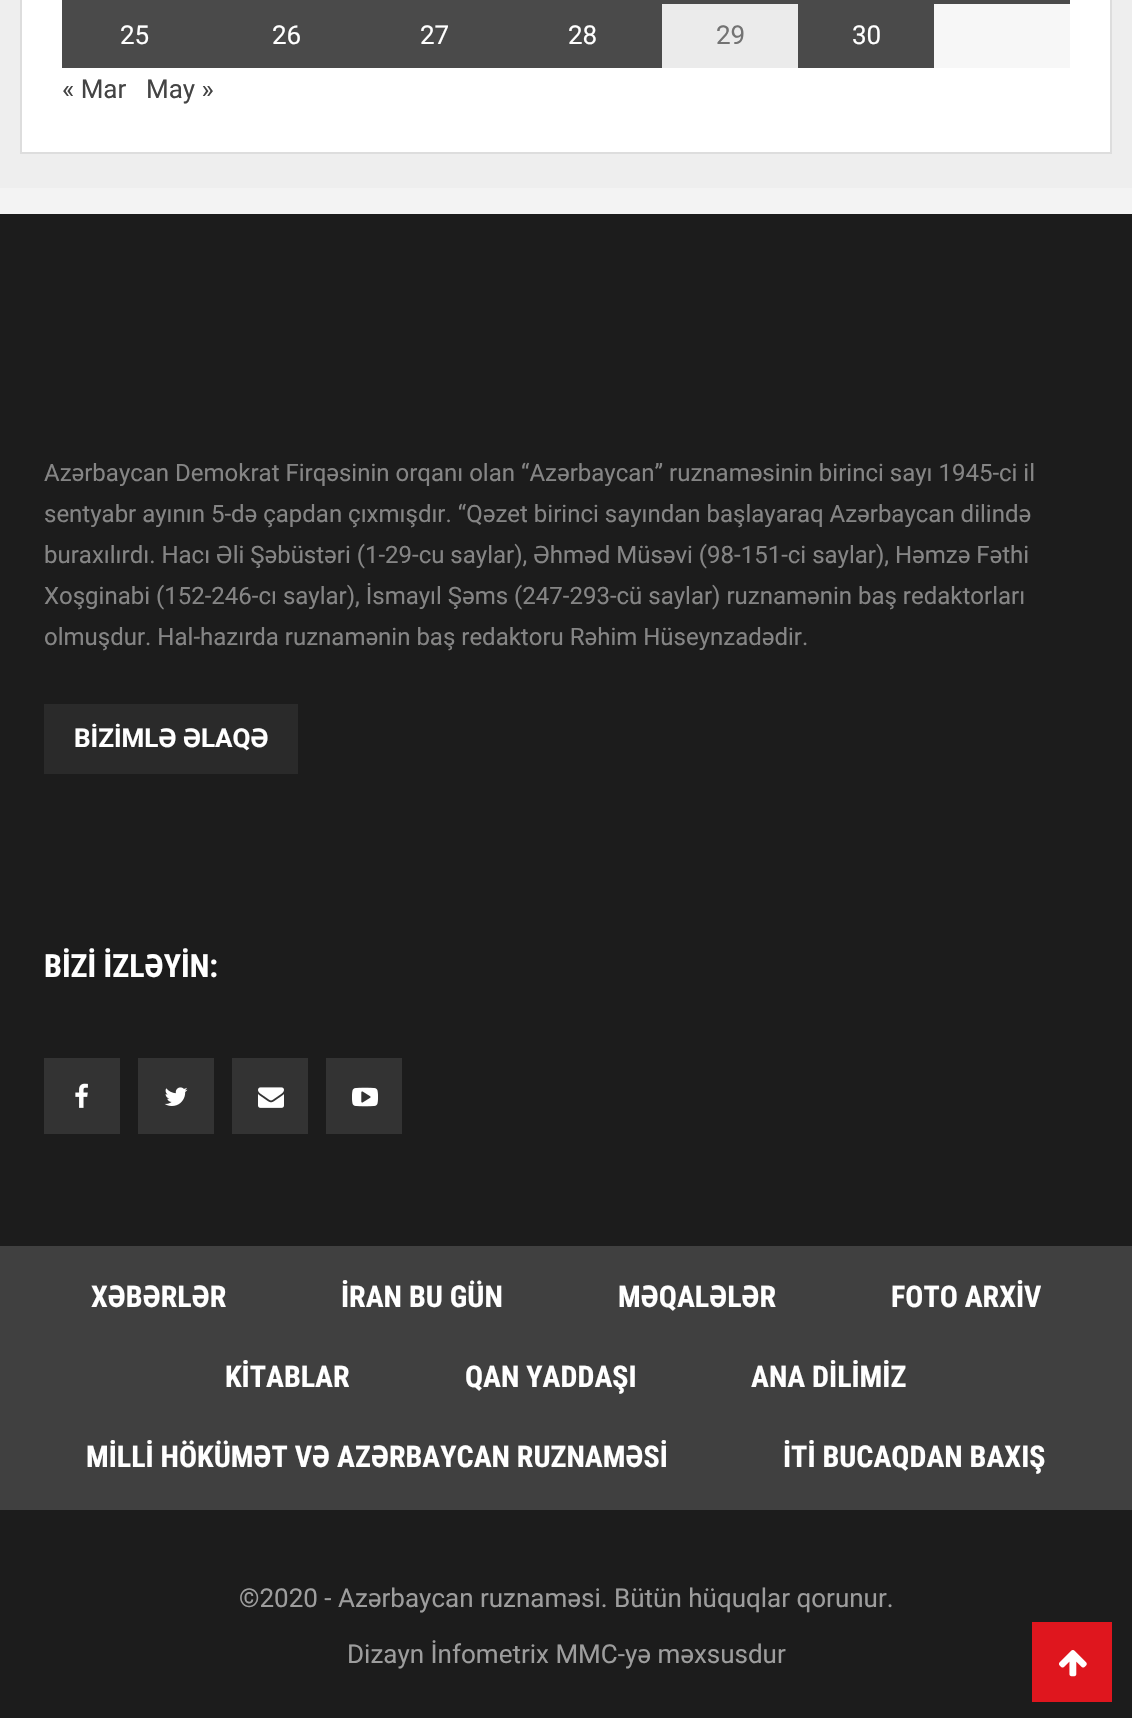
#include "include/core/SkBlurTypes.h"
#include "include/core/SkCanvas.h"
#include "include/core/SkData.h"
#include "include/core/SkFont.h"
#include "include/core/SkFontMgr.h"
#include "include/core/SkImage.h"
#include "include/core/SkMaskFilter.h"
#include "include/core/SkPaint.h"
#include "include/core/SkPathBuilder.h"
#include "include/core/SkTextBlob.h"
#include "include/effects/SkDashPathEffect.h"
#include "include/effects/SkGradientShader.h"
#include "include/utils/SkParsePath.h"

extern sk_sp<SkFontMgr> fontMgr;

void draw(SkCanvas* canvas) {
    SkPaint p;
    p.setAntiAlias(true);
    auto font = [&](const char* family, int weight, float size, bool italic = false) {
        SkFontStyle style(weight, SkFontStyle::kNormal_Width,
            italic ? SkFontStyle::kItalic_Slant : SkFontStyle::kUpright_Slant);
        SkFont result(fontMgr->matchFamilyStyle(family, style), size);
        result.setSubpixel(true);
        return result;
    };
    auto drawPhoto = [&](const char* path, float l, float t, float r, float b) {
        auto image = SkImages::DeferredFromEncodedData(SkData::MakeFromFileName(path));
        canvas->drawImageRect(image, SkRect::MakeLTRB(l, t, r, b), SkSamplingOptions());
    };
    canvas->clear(0xFFF3F3F3);
    p.setColor(0xFFEEEEEE);
    canvas->drawRect(SkRect::MakeLTRB(0, 0, 1132, 188), p);
    p.setColor(0xFFFFFFFF);
    canvas->drawRect(SkRect::MakeLTRB(21, -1, 1111, 153), p);
    p.setStyle(SkPaint::kStroke_Style);
    p.setStrokeWidth(2);
    p.setColor(0xFFDDDDDD);
    canvas->drawRect(SkRect::MakeLTRB(21, -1, 1111, 153), p);
    p.setStyle(SkPaint::kFill_Style);
    p.setColor(0xFF4A4A4A);
    canvas->drawRect(SkRect::MakeLTRB(62, 0, 1070, 4), p);
    canvas->drawRect(SkRect::MakeLTRB(62, 4, 662, 68), p);
    auto font1 = font("Roboto", 400, 26);
    p.setColor(0xFFFFFFFF);
    {
        const struct { const char* s; float x, y; } items[] = {
            {"25", 120, 44},
            {"26", 272, 44},
            {"27", 420, 44},
            {"28", 568, 44},
        };
        for (auto [s, x, y] : items) {
            canvas->drawString(s, x, y, font1, p);
        }
    }
    p.setColor(0xFFEBEBEB);
    canvas->drawRect(SkRect::MakeLTRB(662, 4, 798, 68), p);
    p.setColor(0xFF737373);
    canvas->drawString("29", 716, 44, font1, p);
    p.setColor(0xFF4A4A4A);
    canvas->drawRect(SkRect::MakeLTRB(798, 4, 934, 68), p);
    p.setColor(0xFFFFFFFF);
    canvas->drawString("30", 852, 44, font1, p);
    p.setColor(0xFFF7F7F7);
    canvas->drawRect(SkRect::MakeLTRB(934, 4, 1070, 68), p);
    p.setColor(0xFF444444);
    canvas->drawString("« Mar", 62, 98, font1, p);
    canvas->drawString("May »", 146, 98, font1, p);
    p.setColor(0xFF1C1C1C);
    canvas->drawRect(SkRect::MakeLTRB(0, 214, 1132, 1718), p);
    auto font2 = font("Roboto", 400, 24);
    p.setColor(0xFF858585);
    {
        const struct { const char* s; float x, y; } items[] = {
            {"Azərbaycan Demokrat Firqəsinin orqanı olan “Azərbaycan” ruznaməsinin birinci sayı 1945-ci il", 44, 481},
            {"sentyabr ayının 5-də çapdan çıxmışdır. “Qəzet birinci sayından başlayaraq Azərbaycan dilində", 44, 522},
            {"buraxılırdı. Hacı Əli Şəbüstəri (1-29-cu saylar), Əhməd Müsəvi (98-151-ci saylar), Həmzə Fəthi", 44, 563},
            {"Xoşginabi (152-246-cı saylar), İsmayıl Şəms (247-293-cü saylar) ruznamənin baş redaktorları", 44, 604},
            {"olmuşdur. Hal-hazırda ruznamənin baş redaktoru Rəhim Hüseynzadədir.", 44, 645},
        };
        for (auto [s, x, y] : items) {
            canvas->drawString(s, x, y, font2, p);
        }
    }
    p.setColor(0xFF2A2A2A);
    canvas->drawRect(SkRect::MakeLTRB(44, 704, 298, 774), p);
    auto font3 = font("Roboto", 700, 26);
    p.setColor(0xFFFFFFFF);
    canvas->drawString("BİZİMLƏ ƏLAQƏ", 74, 747, font3, p);
    auto font4 = font("Roboto Condensed", 700, 32);
    canvas->drawString("BİZİ İZLƏYİN:", 44, 977, font4, p);
    p.setColor(0xFF333333);
    canvas->drawRect(SkRect::MakeLTRB(44, 1058, 120, 1134), p);
    drawPhoto("media/1.png", 75, 1083, 88, 1108);
    canvas->drawRect(SkRect::MakeLTRB(138, 1058, 214, 1134), p);
    drawPhoto("media/2.png", 164, 1087, 188, 1106);
    canvas->drawRect(SkRect::MakeLTRB(232, 1058, 308, 1134), p);
    drawPhoto("media/3.png", 258, 1087, 284, 1108);
    canvas->drawRect(SkRect::MakeLTRB(326, 1058, 402, 1134), p);
    drawPhoto("media/4.png", 352, 1087, 378, 1107);
    p.setColor(0xFF404040);
    canvas->drawRect(SkRect::MakeLTRB(0, 1246, 1132, 1510), p);
    auto font5 = font("Roboto Condensed", 700, 30);
    p.setColor(0xFFFFFFFF);
    {
        const struct { const char* s; float x, y; } items[] = {
            {"XƏBƏRLƏR", 91, 1307},
            {"İRAN BU GÜN", 341, 1307},
            {"MƏQALƏLƏR", 618, 1307},
            {"FOTO ARXİV", 891, 1307},
            {"KİTABLAR", 225, 1387},
            {"QAN YADDAŞI", 465, 1387},
            {"ANA DİLİMİZ", 751, 1387},
            {"MİLLİ HÖKÜMƏT VƏ AZƏRBAYCAN RUZNAMƏSİ", 86, 1467},
            {"İTİ BUCAQDAN BAXIŞ", 783, 1467},
        };
        for (auto [s, x, y] : items) {
            canvas->drawString(s, x, y, font5, p);
        }
    }
    p.setColor(0xFF9D9D9D);
    canvas->drawString("©2020 - Azərbaycan ruznaməsi. Bütün hüquqlar qorunur.", 239, 1607, font1, p);
    canvas->drawString("Dizayn İnfometrix MMC-yə məxsusdur", 347, 1663, font1, p);
    p.setColor(0xFFDF161E);
    canvas->drawRect(SkRect::MakeLTRB(1032, 1622, 1112, 1702), p);
    drawPhoto("media/5.png", 1059, 1650, 1087, 1677);
}
